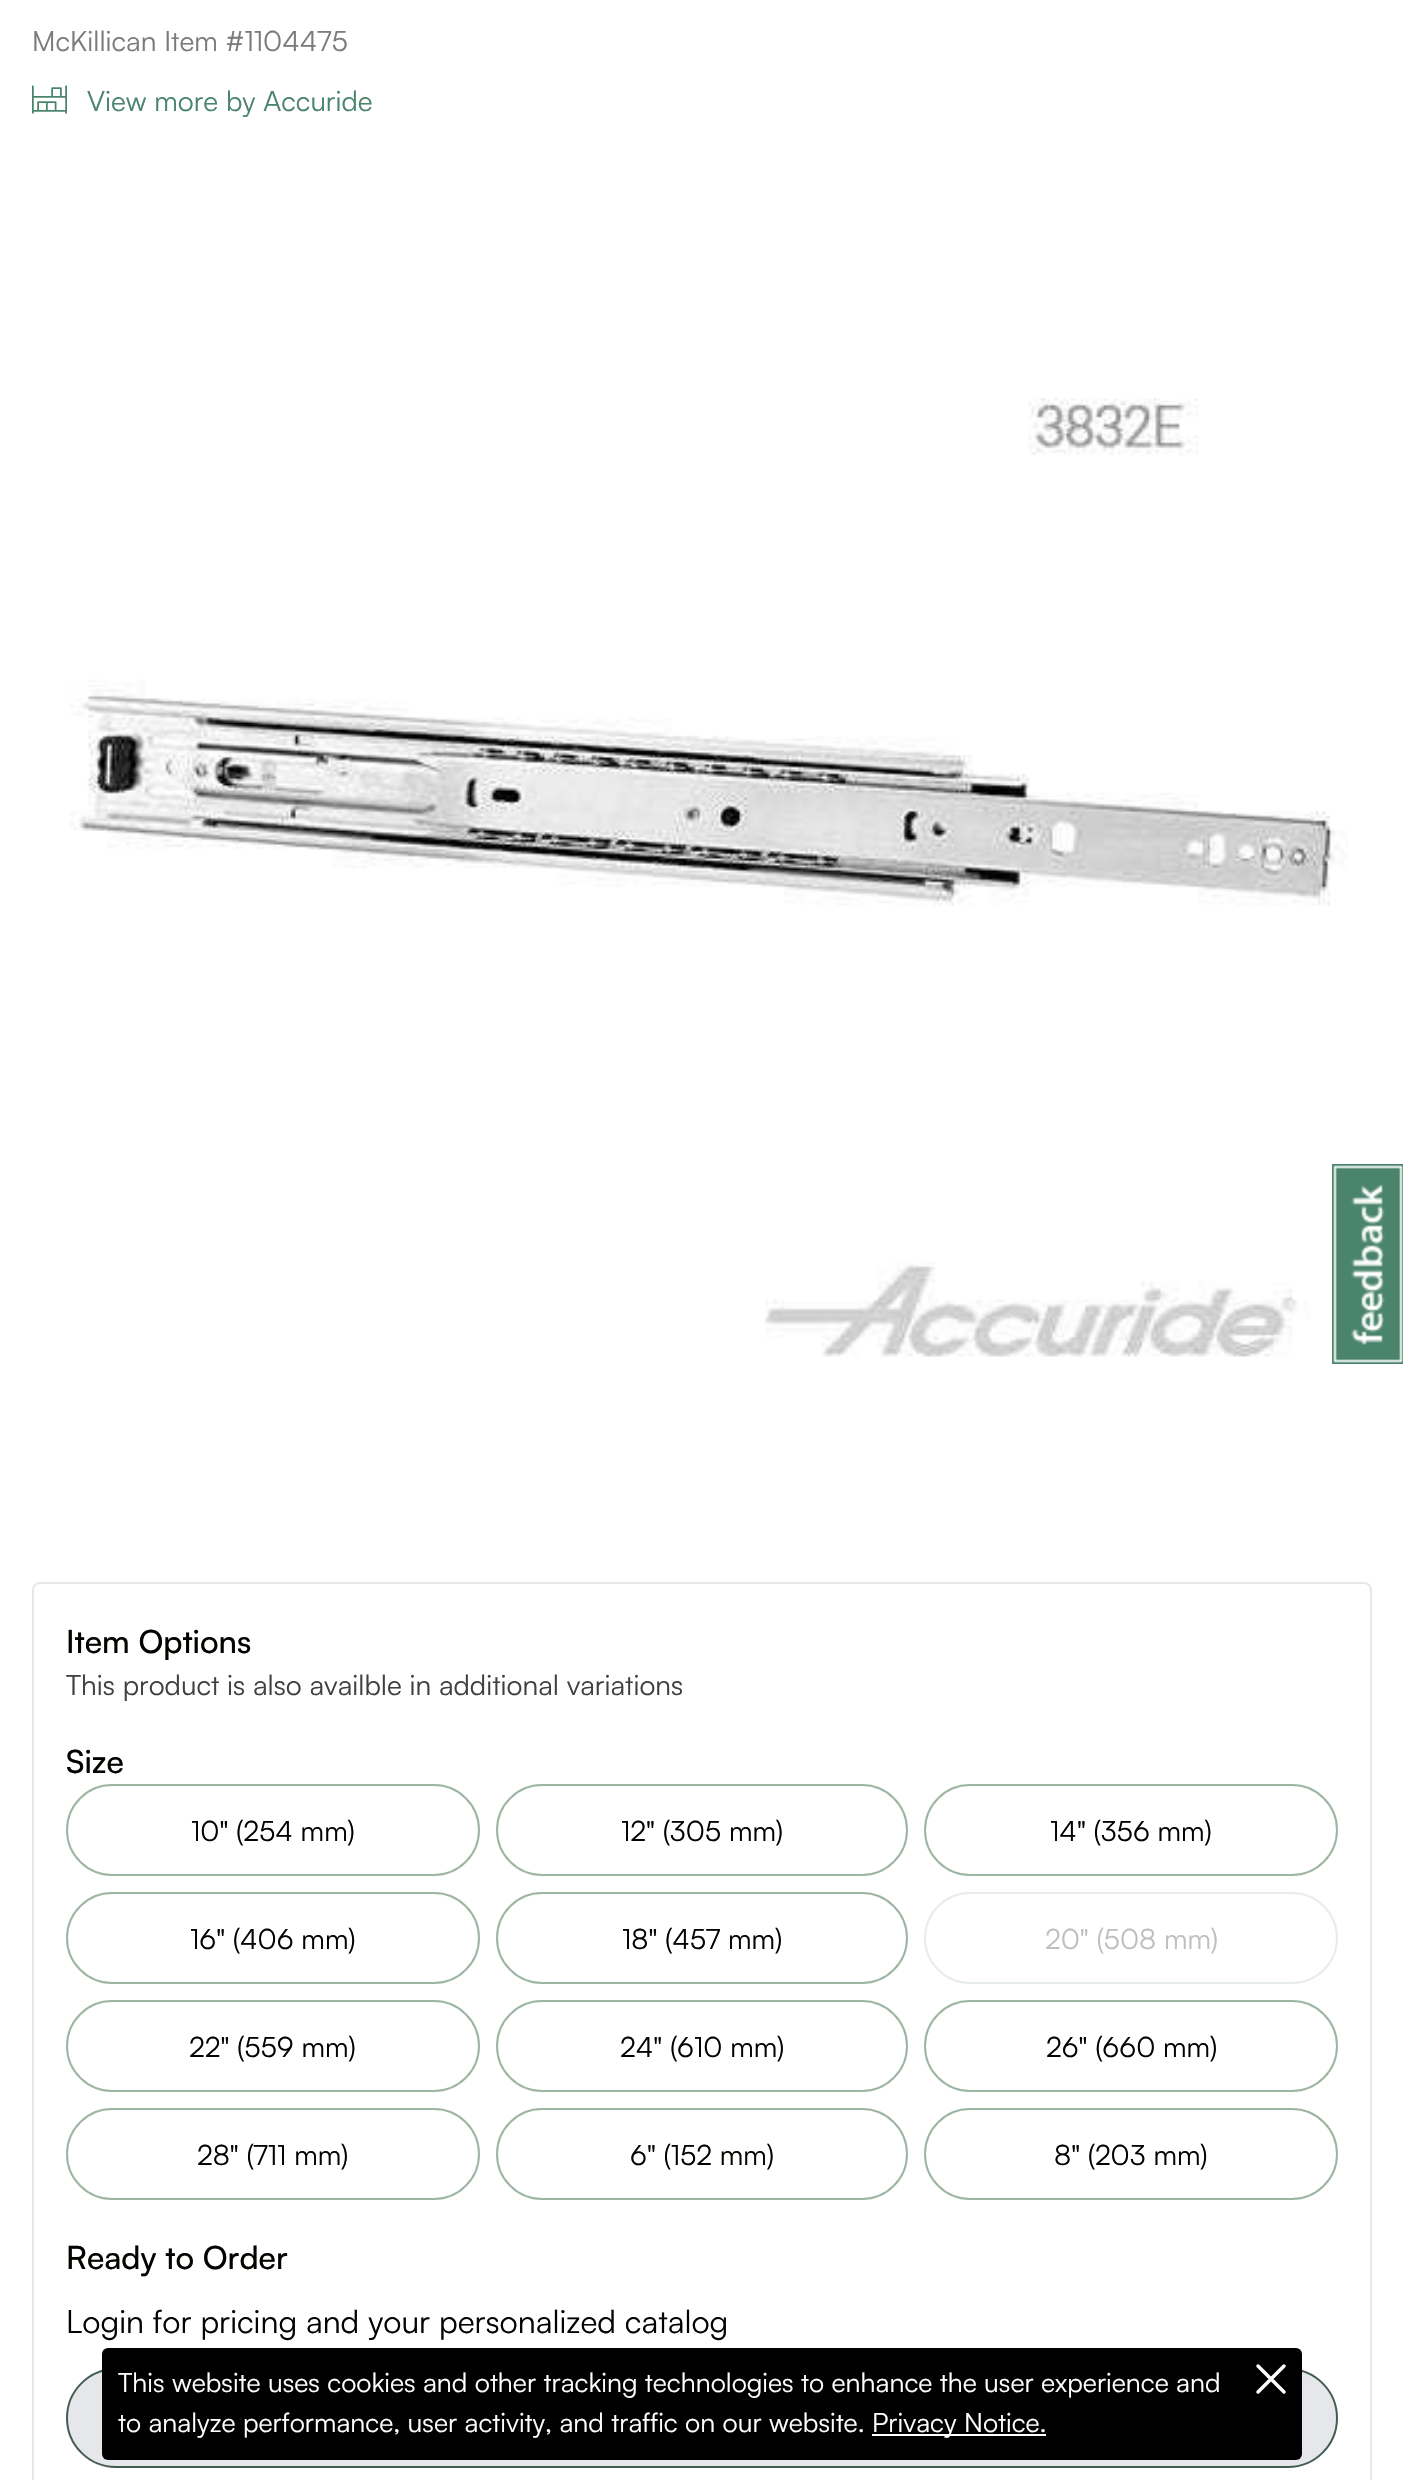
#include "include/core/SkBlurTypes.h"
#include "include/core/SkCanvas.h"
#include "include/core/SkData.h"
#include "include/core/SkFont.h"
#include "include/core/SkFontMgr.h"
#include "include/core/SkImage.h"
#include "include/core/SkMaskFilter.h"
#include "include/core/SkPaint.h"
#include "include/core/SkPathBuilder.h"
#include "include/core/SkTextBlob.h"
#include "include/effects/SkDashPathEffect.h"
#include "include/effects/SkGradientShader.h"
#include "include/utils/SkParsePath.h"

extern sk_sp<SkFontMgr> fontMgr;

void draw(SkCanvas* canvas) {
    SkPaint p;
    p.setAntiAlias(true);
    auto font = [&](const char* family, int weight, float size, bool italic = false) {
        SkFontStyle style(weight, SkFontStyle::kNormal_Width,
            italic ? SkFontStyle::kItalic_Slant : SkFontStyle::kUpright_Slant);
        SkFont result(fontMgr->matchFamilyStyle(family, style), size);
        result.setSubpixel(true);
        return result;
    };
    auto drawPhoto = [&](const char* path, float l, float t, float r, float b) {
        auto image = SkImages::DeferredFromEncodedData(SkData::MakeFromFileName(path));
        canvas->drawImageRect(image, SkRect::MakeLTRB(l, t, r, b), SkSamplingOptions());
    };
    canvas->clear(0xFFFFFFFF);
    auto font1 = font("Satoshi", 400, 28);
    p.setColor(0xFF7B7B7B);
    canvas->drawString("McKillican Item #1104475", 32, 51, font1, p);
    drawPhoto("media/1.png", 32, 85, 67, 114);
    p.setColor(0xFF4B846D);
    canvas->drawString("View more by Accuride", 87, 111, font1, p);
    drawPhoto("media/2.png", 70, 398, 1348, 1357);
    p.setStyle(SkPaint::kStroke_Style);
    p.setStrokeWidth(2);
    p.setColor(0xFFE5E7EB);
    canvas->drawRoundRect(SkRect::MakeLTRB(33, 1583, 1371, 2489), 7, 7, p);
    auto font2 = font("Satoshi", 500, 32);
    p.setStyle(SkPaint::kFill_Style);
    p.setColor(0xFF040300);
    canvas->drawString("Item Options", 66, 1653, font2, p);
    p.setColor(0xFF40403F);
    canvas->drawString("This product is also availble in additional variations", 66, 1695, font1, p);
    p.setColor(0xFF040300);
    canvas->drawString("Size", 66, 1773, font2, p);
    p.setStyle(SkPaint::kStroke_Style);
    p.setColor(0xFF9EB5A2);
    canvas->drawRoundRect(SkRect::MakeLTRB(67, 1785, 479, 1875), 45, 45, p);
    p.setStyle(SkPaint::kFill_Style);
    p.setColor(0xFF040300);
    canvas->drawString("10\" (254 mm)", 191, 1841, font1, p);
    p.setStyle(SkPaint::kStroke_Style);
    p.setColor(0xFF9EB5A2);
    canvas->drawRoundRect(SkRect::MakeLTRB(497, 1785, 907, 1875), 45, 45, p);
    p.setStyle(SkPaint::kFill_Style);
    p.setColor(0xFF040300);
    canvas->drawString("12\" (305 mm)", 621, 1841, font1, p);
    p.setStyle(SkPaint::kStroke_Style);
    p.setColor(0xFF9EB5A2);
    canvas->drawRoundRect(SkRect::MakeLTRB(925, 1785, 1337, 1875), 45, 45, p);
    p.setStyle(SkPaint::kFill_Style);
    p.setColor(0xFF040300);
    canvas->drawString("14\" (356 mm)", 1050, 1841, font1, p);
    p.setStyle(SkPaint::kStroke_Style);
    p.setColor(0xFF9EB5A2);
    canvas->drawRoundRect(SkRect::MakeLTRB(67, 1893, 479, 1983), 45, 45, p);
    p.setStyle(SkPaint::kFill_Style);
    p.setColor(0xFF040300);
    canvas->drawString("16\" (406 mm)", 190, 1949, font1, p);
    p.setStyle(SkPaint::kStroke_Style);
    p.setColor(0xFF9EB5A2);
    canvas->drawRoundRect(SkRect::MakeLTRB(497, 1893, 907, 1983), 45, 45, p);
    p.setStyle(SkPaint::kFill_Style);
    p.setColor(0xFF040300);
    canvas->drawString("18\" (457 mm)", 622, 1949, font1, p);
    p.setStyle(SkPaint::kStroke_Style);
    p.setColor(0xFFE7EDE8);
    canvas->drawRoundRect(SkRect::MakeLTRB(925, 1893, 1337, 1983), 45, 45, p);
    p.setStyle(SkPaint::kFill_Style);
    p.setColor(0xFFBFBFBF);
    canvas->drawString("20\" (508 mm)", 1045, 1949, font1, p);
    p.setStyle(SkPaint::kStroke_Style);
    p.setColor(0xFF9EB5A2);
    canvas->drawRoundRect(SkRect::MakeLTRB(67, 2001, 479, 2091), 45, 45, p);
    p.setStyle(SkPaint::kFill_Style);
    p.setColor(0xFF040300);
    canvas->drawString("22\" (559 mm)", 189, 2057, font1, p);
    p.setStyle(SkPaint::kStroke_Style);
    p.setColor(0xFF9EB5A2);
    canvas->drawRoundRect(SkRect::MakeLTRB(497, 2001, 907, 2091), 45, 45, p);
    p.setStyle(SkPaint::kFill_Style);
    p.setColor(0xFF040300);
    canvas->drawString("24\" (610 mm)", 620, 2057, font1, p);
    p.setStyle(SkPaint::kStroke_Style);
    p.setColor(0xFF9EB5A2);
    canvas->drawRoundRect(SkRect::MakeLTRB(925, 2001, 1337, 2091), 45, 45, p);
    p.setStyle(SkPaint::kFill_Style);
    p.setColor(0xFF040300);
    canvas->drawString("26\" (660 mm)", 1046, 2057, font1, p);
    p.setStyle(SkPaint::kStroke_Style);
    p.setColor(0xFF9EB5A2);
    canvas->drawRoundRect(SkRect::MakeLTRB(67, 2109, 479, 2199), 45, 45, p);
    p.setStyle(SkPaint::kFill_Style);
    p.setColor(0xFF040300);
    canvas->drawString("28\" (711 mm)", 197, 2165, font1, p);
    p.setStyle(SkPaint::kStroke_Style);
    p.setColor(0xFF9EB5A2);
    canvas->drawRoundRect(SkRect::MakeLTRB(497, 2109, 907, 2199), 45, 45, p);
    p.setStyle(SkPaint::kFill_Style);
    p.setColor(0xFF040300);
    canvas->drawString("6\" (152 mm)", 630, 2165, font1, p);
    p.setStyle(SkPaint::kStroke_Style);
    p.setColor(0xFF9EB5A2);
    canvas->drawRoundRect(SkRect::MakeLTRB(925, 2109, 1337, 2199), 45, 45, p);
    p.setStyle(SkPaint::kFill_Style);
    p.setColor(0xFF040300);
    canvas->drawString("8\" (203 mm)", 1054, 2165, font1, p);
    canvas->drawString("Ready to Order", 66, 2269, font2, p);
    auto font3 = font("Satoshi", 400, 32);
    canvas->drawString("Login for pricing and your personalized catalog", 66, 2333, font3, p);
    p.setColor(0xFFE5E7EB);
    canvas->drawRoundRect(SkRect::MakeLTRB(67, 2369, 1337, 2467), 49, 49, p);
    p.setStyle(SkPaint::kStroke_Style);
    p.setColor(0xFF445B52);
    canvas->drawRoundRect(SkRect::MakeLTRB(67, 2369, 1337, 2467), 49, 49, p);
    p.setStyle(SkPaint::kFill_Style);
    p.setColor(0xFF4B846D);
    canvas->drawRect(SkRect::MakeLTRB(1332, 1164, 1403, 1364), p);
    drawPhoto("media/3.png", 1333, 1165, 1403, 1363);
    p.setColor(0xFF000000);
    canvas->drawRoundRect(SkRect::MakeLTRB(102, 2348, 1302, 2460), 6, 6, p);
    auto font4 = font("Satoshi", 400, 26.65f);
    p.setColor(0xFFFFFFFF);
    canvas->drawString("This website uses cookies and other tracking technologies to enhance the user experience and", 118, 2392, font4, p);
    p.setStyle(SkPaint::kStroke_Style);
    p.setStrokeWidth(3.5f);
    p.setStrokeCap(SkPaint::kRound_Cap);
    p.setStrokeJoin(SkPaint::kRound_Join);
    canvas->drawPath(SkPathBuilder().moveTo(1258, 2366).lineTo(1284, 2392).moveTo(1284, 2366).lineTo(1258, 2392).detach(), p);
    p.setStyle(SkPaint::kFill_Style);
    canvas->drawString("to analyze performance, user activity, and traffic on our website.", 118, 2432, font4, p);
    canvas->drawRect(SkRect::MakeLTRB(872, 2434, 1046, 2436), p);
    canvas->drawString("Privacy Notice.", 872, 2432, font4, p);
}
